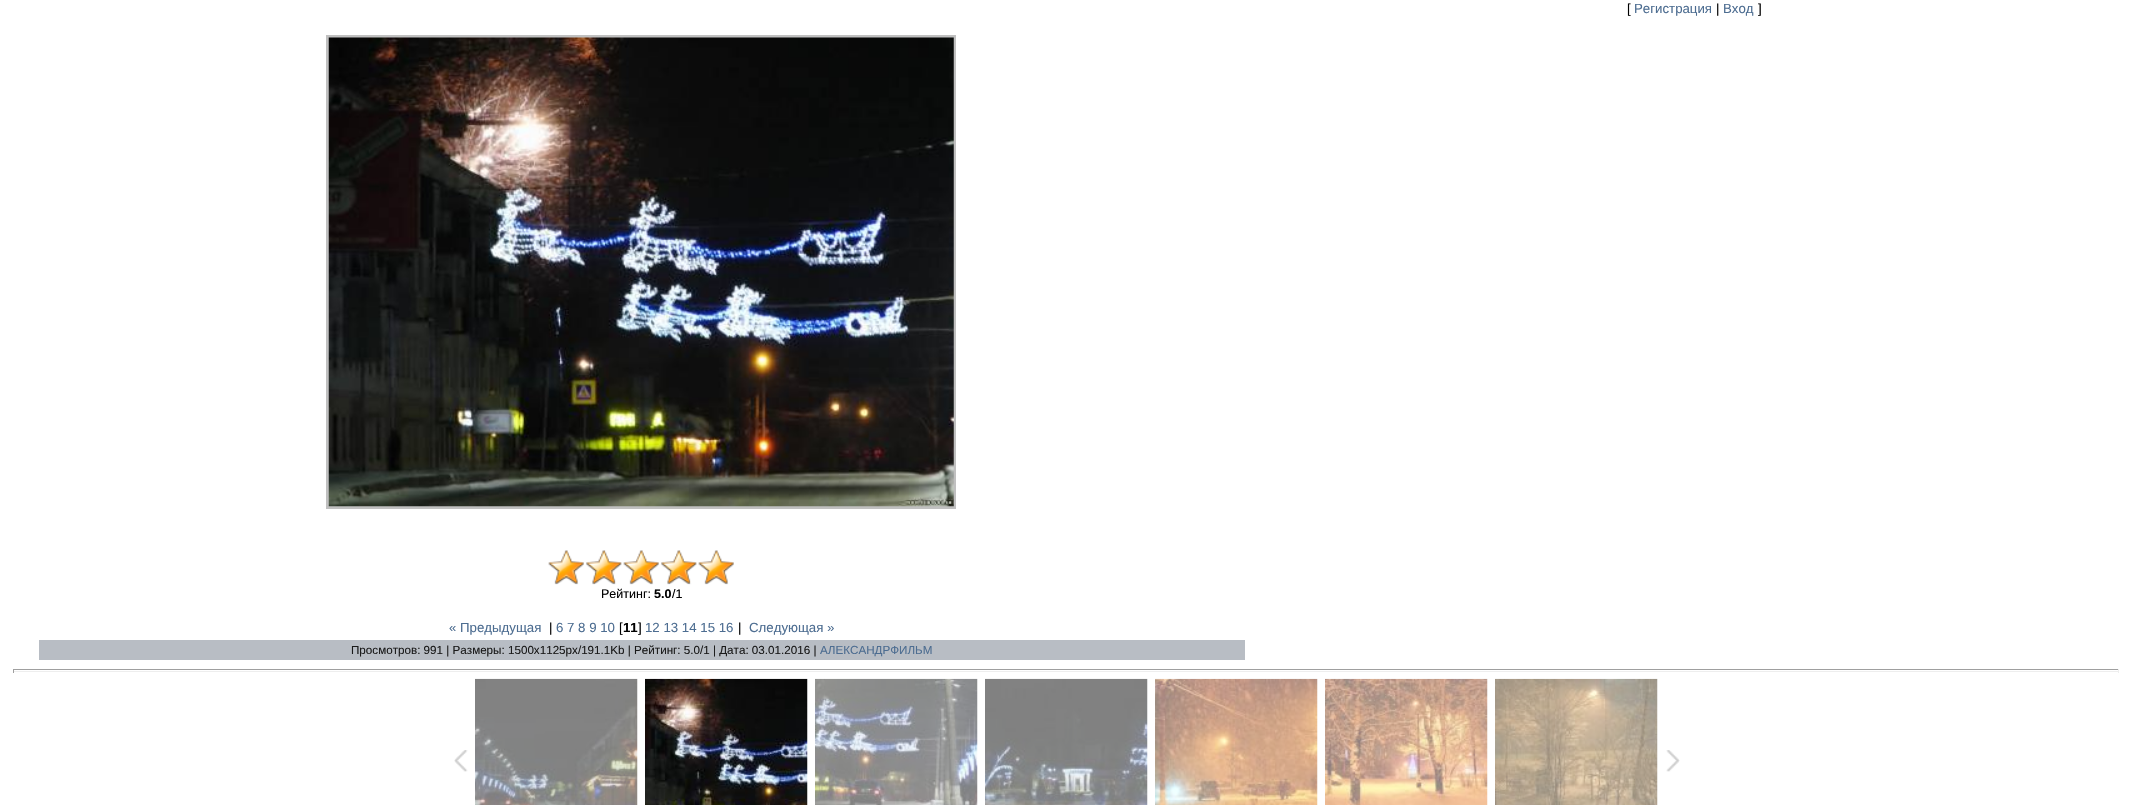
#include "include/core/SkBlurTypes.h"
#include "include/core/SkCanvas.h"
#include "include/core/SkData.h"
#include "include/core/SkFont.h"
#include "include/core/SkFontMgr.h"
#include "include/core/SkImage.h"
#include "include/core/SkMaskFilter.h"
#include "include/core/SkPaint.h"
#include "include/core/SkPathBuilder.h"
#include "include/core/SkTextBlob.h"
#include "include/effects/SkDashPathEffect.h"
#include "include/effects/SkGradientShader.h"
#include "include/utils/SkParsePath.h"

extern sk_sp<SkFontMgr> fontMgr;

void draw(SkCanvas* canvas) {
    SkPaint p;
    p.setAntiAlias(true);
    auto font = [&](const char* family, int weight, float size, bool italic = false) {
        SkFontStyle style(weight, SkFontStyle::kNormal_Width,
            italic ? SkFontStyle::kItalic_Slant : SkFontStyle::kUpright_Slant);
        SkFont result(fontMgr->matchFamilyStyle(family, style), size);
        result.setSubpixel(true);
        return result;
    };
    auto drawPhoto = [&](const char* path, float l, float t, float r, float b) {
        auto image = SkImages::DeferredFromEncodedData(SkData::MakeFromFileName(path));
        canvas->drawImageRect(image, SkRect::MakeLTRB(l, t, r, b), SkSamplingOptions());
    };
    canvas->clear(0xFFFFFFFF);
    auto font1 = font("Liberation Sans", 400, 13.25f);
    p.setColor(0xFF000000);
    canvas->drawString("[", 1627, 13, font1, p);
    p.setColor(0xFF4D6D91);
    canvas->drawString("Регистрация", 1634, 13, font1, p);
    p.setColor(0xFF000000);
    canvas->drawString("|", 1716, 13, font1, p);
    p.setColor(0xFF4D6D91);
    canvas->drawString("Вход", 1723, 13, font1, p);
    p.setColor(0xFF000000);
    canvas->drawString("]", 1758, 13, font1, p);
    p.setStyle(SkPaint::kStroke_Style);
    p.setStrokeWidth(3);
    p.setColor(0xFFC0C0C0);
    canvas->drawRect(SkRect::MakeLTRB(327.5f, 36.5f, 954.5f, 507.5f), p);
    drawPhoto("media/1.png", 328, 37, 954, 507);
    drawPhoto("media/2.png", 548, 550, 734, 584);
    drawPhoto("media/3.png", 548, 550, 734, 585);
    auto font2 = font("Liberation Sans", 400, 12.5f);
    p.setStyle(SkPaint::kFill_Style);
    p.setColor(0xFF000000);
    canvas->drawString("Рейтинг:", 601, 598, font2, p);
    auto font3 = font("Liberation Sans", 700, 12.5f);
    canvas->drawString("5.0", 654, 598, font3, p);
    canvas->drawString("/1", 672, 598, font2, p);
    p.setColor(0xFF4D6D91);
    canvas->drawString("« Предыдущая", 449, 632, font1, p);
    p.setColor(0xFF000000);
    canvas->drawString("|", 549, 632, font1, p);
    p.setColor(0xFF4D6D91);
    canvas->drawString("6 7 8 9 10", 556, 632, font1, p);
    p.setColor(0xFF000000);
    canvas->drawString("[", 619, 632, font1, p);
    auto font4 = font("Liberation Sans", 700, 13.25f);
    canvas->drawString("11", 623, 632, font4, p);
    canvas->drawString("]", 638, 632, font1, p);
    p.setColor(0xFF4D6D91);
    canvas->drawString("12 13 14 15 16", 645, 632, font1, p);
    p.setColor(0xFF000000);
    canvas->drawString("|", 738, 632, font1, p);
    p.setColor(0xFF4D6D91);
    canvas->drawString("Следующая »", 749, 632, font1, p);
    p.setColor(0xFFB8BDC4);
    canvas->drawRect(SkRect::MakeLTRB(39, 640, 1245, 660), p);
    auto font5 = font("Liberation Sans", 400, 11.65f);
    p.setColor(0xFF1A1A1A);
    canvas->drawString("Просмотров: 991 | Размеры: 1500x1125px/191.1Kb | Рейтинг: 5.0/1 | Дата: 03.01.2016 |", 351, 654, font5, p);
    p.setColor(0xFF4D6D91);
    canvas->drawString("АЛЕКСАНДРФИЛЬМ", 820, 654, font5, p);
    {
        const struct { float l, t, r, b; SkColor color; } items[] = {
            {13, 669, 2119, 670, 0xFF9F9F9F},
            {2118, 669, 2119, 673, 0xFFEEEEEE},
            {13, 671, 2119, 672, 0xFFEEEEEE},
            {13, 669, 14, 673, 0xFF9F9F9F},
        };
        for (auto [l, t, r, b, color] : items) {
            p.setColor(color);
            canvas->drawRect(SkRect::MakeLTRB(l, t, r, b), p);
        }
    }
    drawPhoto("media/4.png", 454, 750, 468, 772);
    drawPhoto("media/5.png", 475, 678, 638, 805);
    drawPhoto("media/6.png", 645, 678, 808, 805);
    drawPhoto("media/7.png", 815, 678, 978, 805);
    drawPhoto("media/8.png", 985, 678, 1148, 805);
    drawPhoto("media/9.png", 1155, 678, 1318, 805);
    drawPhoto("media/10.png", 1325, 678, 1488, 805);
    drawPhoto("media/11.png", 1495, 678, 1658, 805);
    drawPhoto("media/12.png", 1666, 750, 1680, 772);
}
